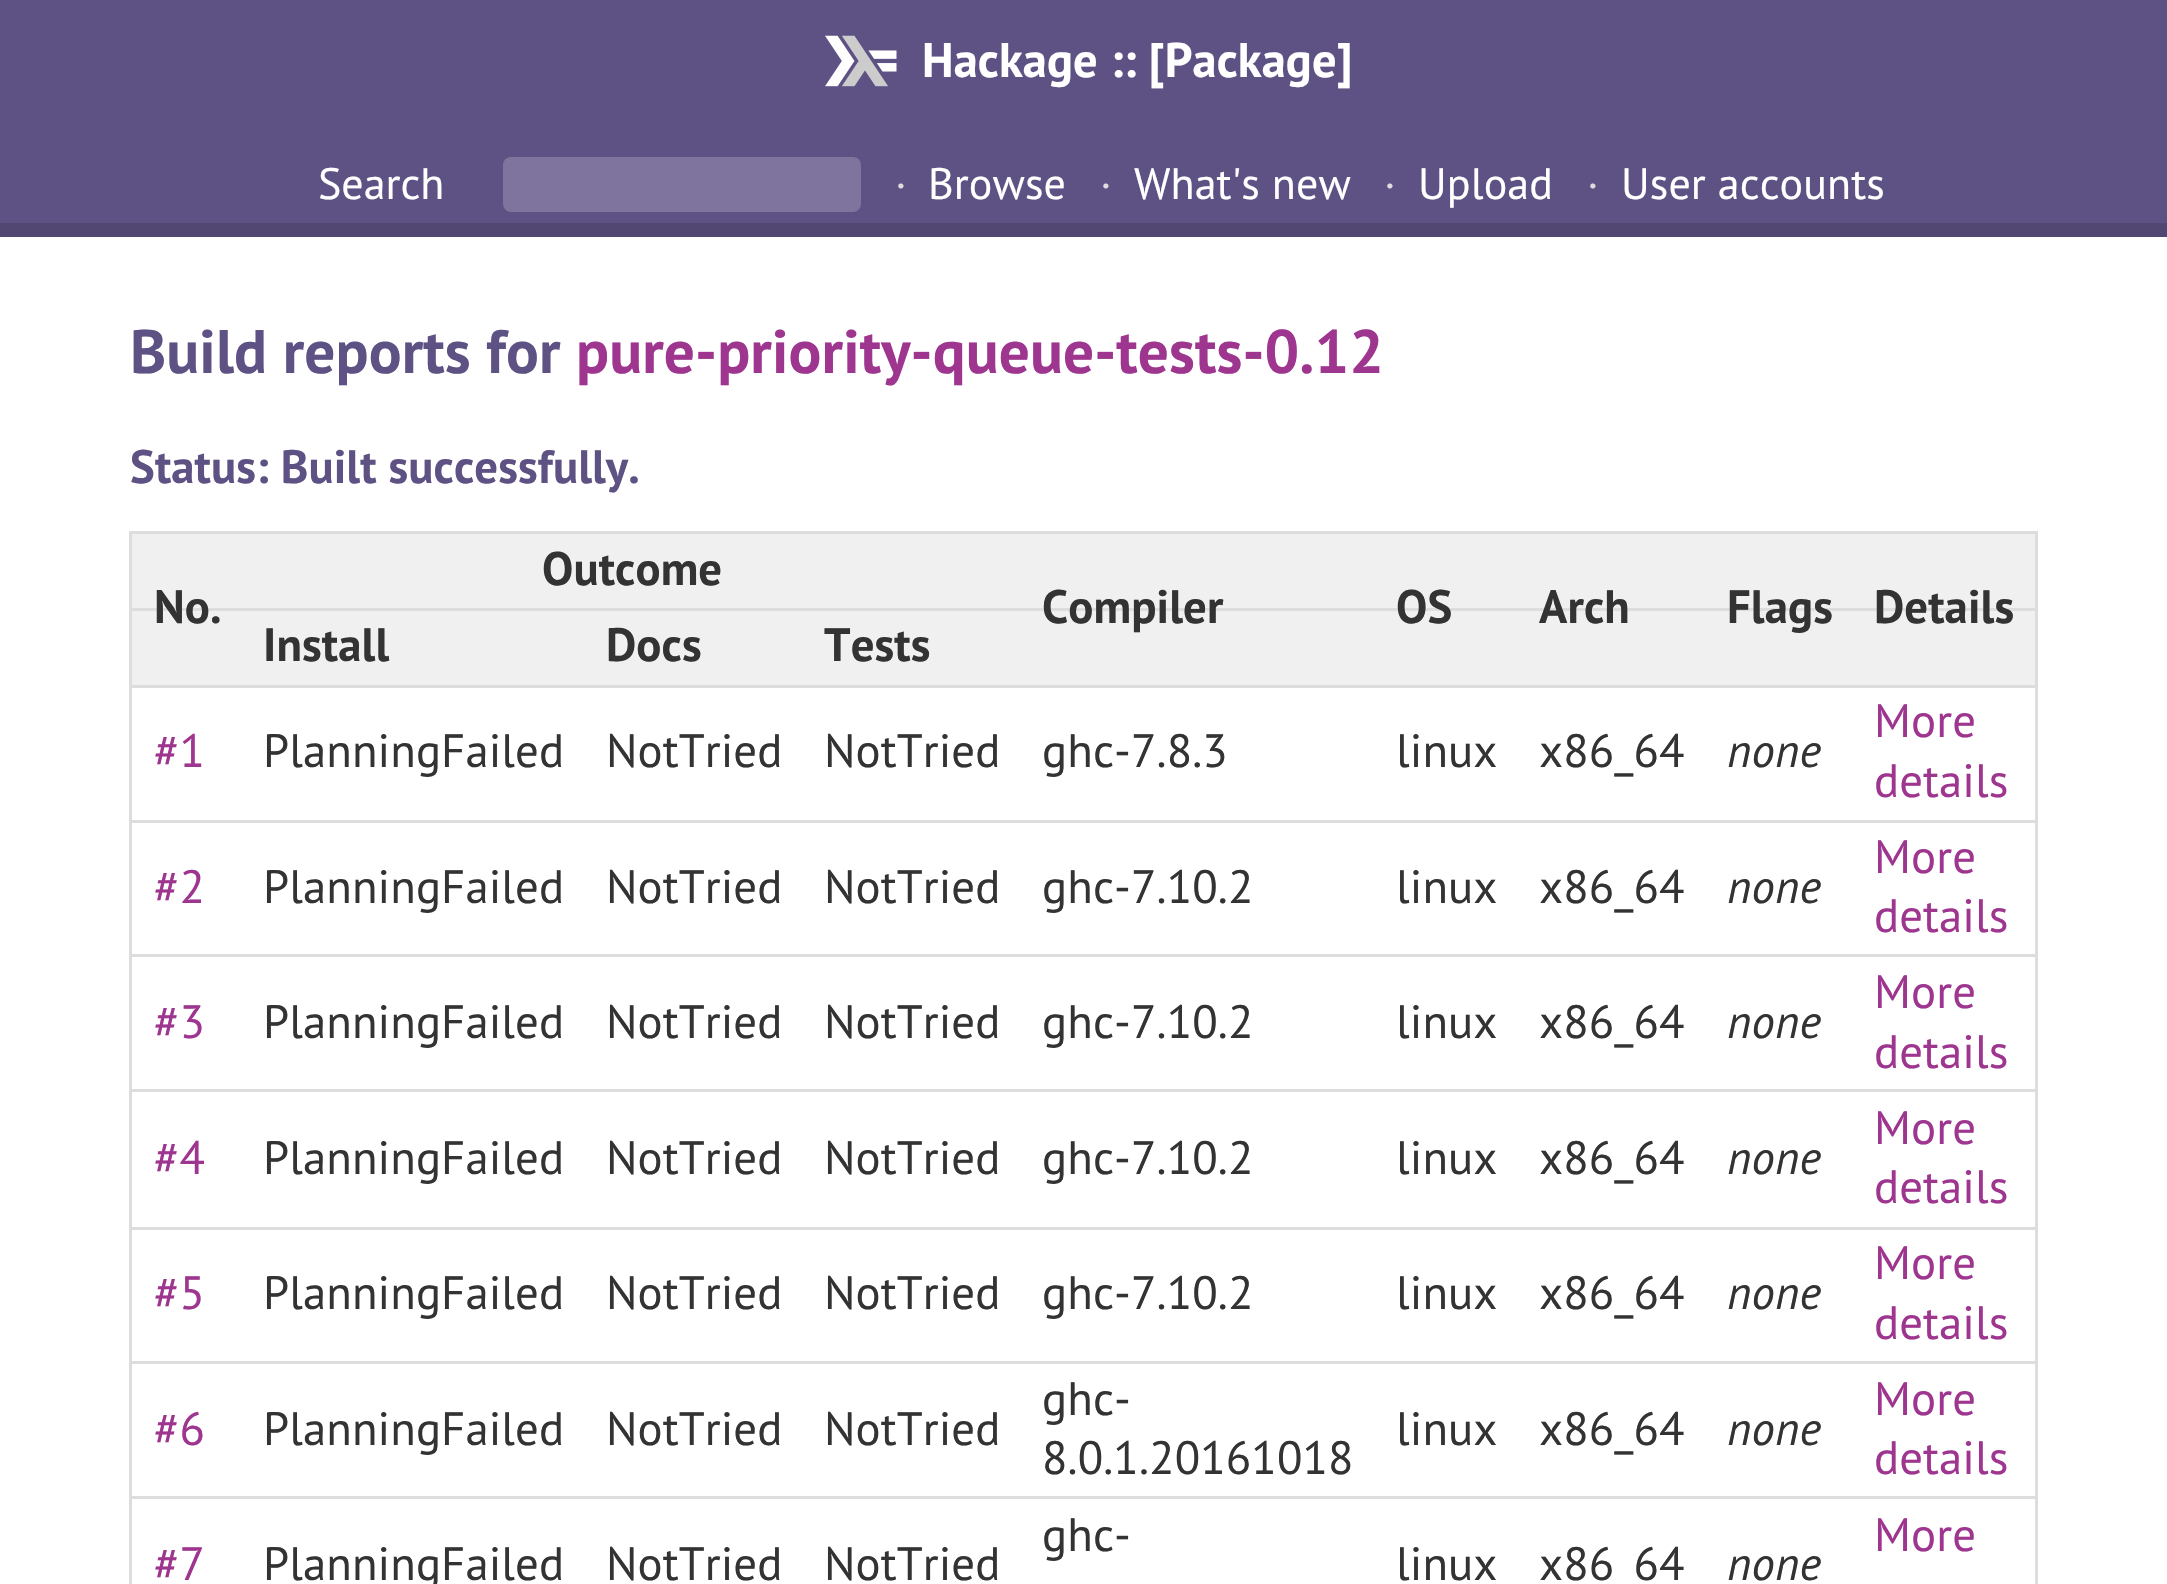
#include "include/core/SkBlurTypes.h"
#include "include/core/SkCanvas.h"
#include "include/core/SkData.h"
#include "include/core/SkFont.h"
#include "include/core/SkFontMgr.h"
#include "include/core/SkImage.h"
#include "include/core/SkMaskFilter.h"
#include "include/core/SkPaint.h"
#include "include/core/SkPathBuilder.h"
#include "include/core/SkTextBlob.h"
#include "include/effects/SkDashPathEffect.h"
#include "include/effects/SkGradientShader.h"
#include "include/utils/SkParsePath.h"

extern sk_sp<SkFontMgr> fontMgr;

void draw(SkCanvas* canvas) {
    SkPaint p;
    p.setAntiAlias(true);
    auto font = [&](const char* family, int weight, float size, bool italic = false) {
        SkFontStyle style(weight, SkFontStyle::kNormal_Width,
            italic ? SkFontStyle::kItalic_Slant : SkFontStyle::kUpright_Slant);
        SkFont result(fontMgr->matchFamilyStyle(family, style), size);
        result.setSubpixel(true);
        return result;
    };
    auto drawTracked = [&](const char* s, float x, float y, const SkFont& font, const SkPaint& ink, float letter, float word) {
        std::vector<SkGlyphID> glyphs(font.countText(s, strlen(s), SkTextEncoding::kUTF8));
        std::vector<float> xs(glyphs.size());
        font.textToGlyphs(s, strlen(s), SkTextEncoding::kUTF8, glyphs);
        font.getXPos(glyphs, xs, x);
        float extra = 0;
        for (size_t i = 0; i < glyphs.size(); i++) {
            xs[i] += extra;
            extra += letter + word * (glyphs[i] == font.unicharToGlyph(' '));
        }
        canvas->drawTextBlob(SkTextBlob::MakeFromPosHGlyphs(glyphs, xs, y, font), 0, 0, ink);
    };
    auto drawPhoto = [&](const char* path, float l, float t, float r, float b) {
        auto image = SkImages::DeferredFromEncodedData(SkData::MakeFromFileName(path));
        canvas->drawImageRect(image, SkRect::MakeLTRB(l, t, r, b), SkSamplingOptions());
    };
    canvas->clear(0xFFFFFFFF);
    p.setColor(0xFF5E5184);
    canvas->drawRect(SkRect::MakeLTRB(0, 0, 2167, 223), p);
    p.setColor(0xFF524673);
    canvas->drawRect(SkRect::MakeLTRB(0, 223, 2167, 237), p);
    drawPhoto("media/1.png", 825, 35, 897, 87);
    auto font1 = font("PT Sans", 700, 48.5f);
    p.setColor(0xFFFFFFFF);
    drawTracked("Hackage :: [Package]", 922, 77, font1, p, 0.1f, 0);
    auto font2 = font("PT Sans", 400, 44);
    canvas->drawString("Search", 318, 199, font2, p);
    p.setColor(0xFF7E749D);
    canvas->drawRoundRect(SkRect::MakeLTRB(503, 157, 861, 212), 8, 8, p);
    p.setColor(0xFFDDDDDD);
    drawTracked("·", 895, 199, font2, p, 0.1f, 0);
    p.setColor(0xFFFFFFFF);
    drawTracked("Browse", 928, 199, font2, p, 0.1f, 0);
    p.setColor(0xFFDDDDDD);
    drawTracked("·", 1100, 199, font2, p, 0.1f, 0);
    p.setColor(0xFFFFFFFF);
    drawTracked("What's new", 1134, 199, font2, p, 0.1f, 0);
    p.setColor(0xFFDDDDDD);
    drawTracked("·", 1384, 199, font2, p, 0.1f, 0);
    p.setColor(0xFFFFFFFF);
    drawTracked("Upload", 1418, 199, font2, p, 0.1f, 0);
    p.setColor(0xFFDDDDDD);
    drawTracked("·", 1587, 199, font2, p, 0.1f, 0);
    p.setColor(0xFFFFFFFF);
    drawTracked("User accounts", 1621, 199, font2, p, 0.1f, 0);
    auto font3 = font("PT Sans", 700, 61.25f);
    p.setColor(0xFF5E5184);
    drawTracked("Build reports for", 130, 373, font3, p, 0.1f, 0);
    p.setColor(0xFF9E358F);
    drawTracked("pure-priority-queue-tests-0.12", 576, 373, font3, p, 0.1f, 0);
    auto font4 = font("PT Sans", 700, 46.75f);
    p.setColor(0xFF5E5184);
    drawTracked("Status: Built successfully.", 130, 483, font4, p, 0.1f, 0);
    {
        const struct { float l, t, r, b; SkColor color; } items[] = {
            {129, 531, 2038, 534, 0xFFDDDDDD},
            {2035, 531, 2038, 1584, 0xFFDDDDDD},
            {129, 531, 132, 1584, 0xFFDDDDDD},
            {242, 534, 1020, 608, 0xFFF0F0F0},
        };
        for (auto [l, t, r, b, color] : items) {
            p.setColor(color);
            canvas->drawRect(SkRect::MakeLTRB(l, t, r, b), p);
        }
    }
    p.setColor(0xFF333333);
    drawTracked("Outcome", 542, 585, font4, p, 0.1f, 0);
    {
        const struct { float l, t, r, b; SkColor color; } items[] = {
            {132, 534, 242, 685, 0xFFF0F0F0},
            {1020, 534, 2035, 685, 0xFFF0F0F0},
            {129, 608, 2038, 611, 0xFFDDDDDD},
        };
        for (auto [l, t, r, b, color] : items) {
            p.setColor(color);
            canvas->drawRect(SkRect::MakeLTRB(l, t, r, b), p);
        }
    }
    p.setColor(0xFF333333);
    {
        const struct { const char* s; float x, y; } items[] = {
            {"No.", 154, 623},
            {"Compiler", 1042, 623},
            {"OS", 1396, 623},
            {"Arch", 1539, 623},
            {"Flags", 1727, 623},
            {"Details", 1874, 623},
        };
        for (auto [s, x, y] : items) {
            drawTracked(s, x, y, font4, p, 0.1f, 0);
        }
    }
    p.setColor(0xFFF0F0F0);
    canvas->drawRect(SkRect::MakeLTRB(242, 611, 1020, 685), p);
    p.setColor(0xFF333333);
    {
        const struct { const char* s; float x, y; } items[] = {
            {"Install", 263, 661},
            {"Docs", 606, 661},
            {"Tests", 824, 661},
        };
        for (auto [s, x, y] : items) {
            drawTracked(s, x, y, font4, p, 0.1f, 0);
        }
    }
    p.setColor(0xFFDDDDDD);
    canvas->drawRect(SkRect::MakeLTRB(129, 685, 2038, 688), p);
    auto font5 = font("PT Sans", 400, 46.75f);
    p.setColor(0xFF9E358F);
    drawTracked("#1", 154, 767, font5, p, 0.1f, 0);
    p.setColor(0xFF333333);
    {
        const struct { const char* s; float x, y; } items[] = {
            {"PlanningFailed", 263, 767},
            {"NotTried", 606, 767},
            {"NotTried", 824, 767},
            {"ghc-7.8.3", 1042, 767},
            {"linux", 1396, 767},
            {"x86_64", 1539, 767},
        };
        for (auto [s, x, y] : items) {
            drawTracked(s, x, y, font5, p, 0.1f, 0);
        }
    }
    auto font6 = font("PT Sans", 400, 46.75f, true);
    drawTracked("none", 1727, 767, font6, p, 0.1f, 0);
    p.setColor(0xFF9E358F);
    drawTracked("More", 1874, 737, font5, p, 0.1f, 0);
    drawTracked("details", 1874, 797, font5, p, 0.1f, 0);
    p.setColor(0xFFDDDDDD);
    canvas->drawRect(SkRect::MakeLTRB(129, 820, 2038, 823), p);
    p.setColor(0xFF9E358F);
    drawTracked("#2", 154, 903, font5, p, 0.1f, 0);
    p.setColor(0xFF333333);
    {
        const struct { const char* s; float x, y; } items[] = {
            {"PlanningFailed", 263, 903},
            {"NotTried", 606, 903},
            {"NotTried", 824, 903},
            {"ghc-7.10.2", 1042, 903},
            {"linux", 1396, 903},
            {"x86_64", 1539, 903},
        };
        for (auto [s, x, y] : items) {
            drawTracked(s, x, y, font5, p, 0.1f, 0);
        }
    }
    drawTracked("none", 1727, 903, font6, p, 0.1f, 0);
    p.setColor(0xFF9E358F);
    drawTracked("More", 1874, 873, font5, p, 0.1f, 0);
    drawTracked("details", 1874, 932, font5, p, 0.1f, 0);
    p.setColor(0xFFDDDDDD);
    canvas->drawRect(SkRect::MakeLTRB(129, 954, 2038, 957), p);
    p.setColor(0xFF9E358F);
    drawTracked("#3", 154, 1038, font5, p, 0.1f, 0);
    p.setColor(0xFF333333);
    {
        const struct { const char* s; float x, y; } items[] = {
            {"PlanningFailed", 263, 1038},
            {"NotTried", 606, 1038},
            {"NotTried", 824, 1038},
            {"ghc-7.10.2", 1042, 1038},
            {"linux", 1396, 1038},
            {"x86_64", 1539, 1038},
        };
        for (auto [s, x, y] : items) {
            drawTracked(s, x, y, font5, p, 0.1f, 0);
        }
    }
    drawTracked("none", 1727, 1038, font6, p, 0.1f, 0);
    p.setColor(0xFF9E358F);
    drawTracked("More", 1874, 1008, font5, p, 0.1f, 0);
    drawTracked("details", 1874, 1068, font5, p, 0.1f, 0);
    p.setColor(0xFFDDDDDD);
    canvas->drawRect(SkRect::MakeLTRB(129, 1089, 2038, 1092), p);
    p.setColor(0xFF9E358F);
    drawTracked("#4", 154, 1174, font5, p, 0.1f, 0);
    p.setColor(0xFF333333);
    {
        const struct { const char* s; float x, y; } items[] = {
            {"PlanningFailed", 263, 1174},
            {"NotTried", 606, 1174},
            {"NotTried", 824, 1174},
            {"ghc-7.10.2", 1042, 1174},
            {"linux", 1396, 1174},
            {"x86_64", 1539, 1174},
        };
        for (auto [s, x, y] : items) {
            drawTracked(s, x, y, font5, p, 0.1f, 0);
        }
    }
    drawTracked("none", 1727, 1174, font6, p, 0.1f, 0);
    p.setColor(0xFF9E358F);
    drawTracked("More", 1874, 1144, font5, p, 0.1f, 0);
    drawTracked("details", 1874, 1203, font5, p, 0.1f, 0);
    p.setColor(0xFFDDDDDD);
    canvas->drawRect(SkRect::MakeLTRB(129, 1227, 2038, 1230), p);
    p.setColor(0xFF9E358F);
    drawTracked("#5", 154, 1309, font5, p, 0.1f, 0);
    p.setColor(0xFF333333);
    {
        const struct { const char* s; float x, y; } items[] = {
            {"PlanningFailed", 263, 1309},
            {"NotTried", 606, 1309},
            {"NotTried", 824, 1309},
            {"ghc-7.10.2", 1042, 1309},
            {"linux", 1396, 1309},
            {"x86_64", 1539, 1309},
        };
        for (auto [s, x, y] : items) {
            drawTracked(s, x, y, font5, p, 0.1f, 0);
        }
    }
    drawTracked("none", 1727, 1309, font6, p, 0.1f, 0);
    p.setColor(0xFF9E358F);
    drawTracked("More", 1874, 1279, font5, p, 0.1f, 0);
    drawTracked("details", 1874, 1339, font5, p, 0.1f, 0);
    p.setColor(0xFFDDDDDD);
    canvas->drawRect(SkRect::MakeLTRB(129, 1361, 2038, 1364), p);
    p.setColor(0xFF9E358F);
    drawTracked("#6", 154, 1445, font5, p, 0.1f, 0);
    p.setColor(0xFF333333);
    {
        const struct { const char* s; float x, y; } items[] = {
            {"PlanningFailed", 263, 1445},
            {"NotTried", 606, 1445},
            {"NotTried", 824, 1445},
            {"ghc-", 1042, 1415},
            {"8.0.1.20161018", 1042, 1474},
            {"linux", 1396, 1445},
            {"x86_64", 1539, 1445},
        };
        for (auto [s, x, y] : items) {
            drawTracked(s, x, y, font5, p, 0.1f, 0);
        }
    }
    drawTracked("none", 1727, 1445, font6, p, 0.1f, 0);
    p.setColor(0xFF9E358F);
    drawTracked("More", 1874, 1415, font5, p, 0.1f, 0);
    drawTracked("details", 1874, 1474, font5, p, 0.1f, 0);
    p.setColor(0xFFDDDDDD);
    canvas->drawRect(SkRect::MakeLTRB(129, 1496, 2038, 1499), p);
    p.setColor(0xFF333333);
    drawTracked("ghc-", 1042, 1551, font5, p, 0.1f, 0);
    p.setColor(0xFF9E358F);
    drawTracked("More", 1874, 1551, font5, p, 0.1f, 0);
    drawTracked("#7", 154, 1580, font5, p, 0.1f, 0);
    p.setColor(0xFF333333);
    {
        const struct { const char* s; float x, y; } items[] = {
            {"PlanningFailed", 263, 1580},
            {"NotTried", 606, 1580},
            {"NotTried", 824, 1580},
            {"linux", 1396, 1580},
            {"x86_64", 1539, 1580},
        };
        for (auto [s, x, y] : items) {
            drawTracked(s, x, y, font5, p, 0.1f, 0);
        }
    }
    drawTracked("none", 1727, 1580, font6, p, 0.1f, 0);
}
